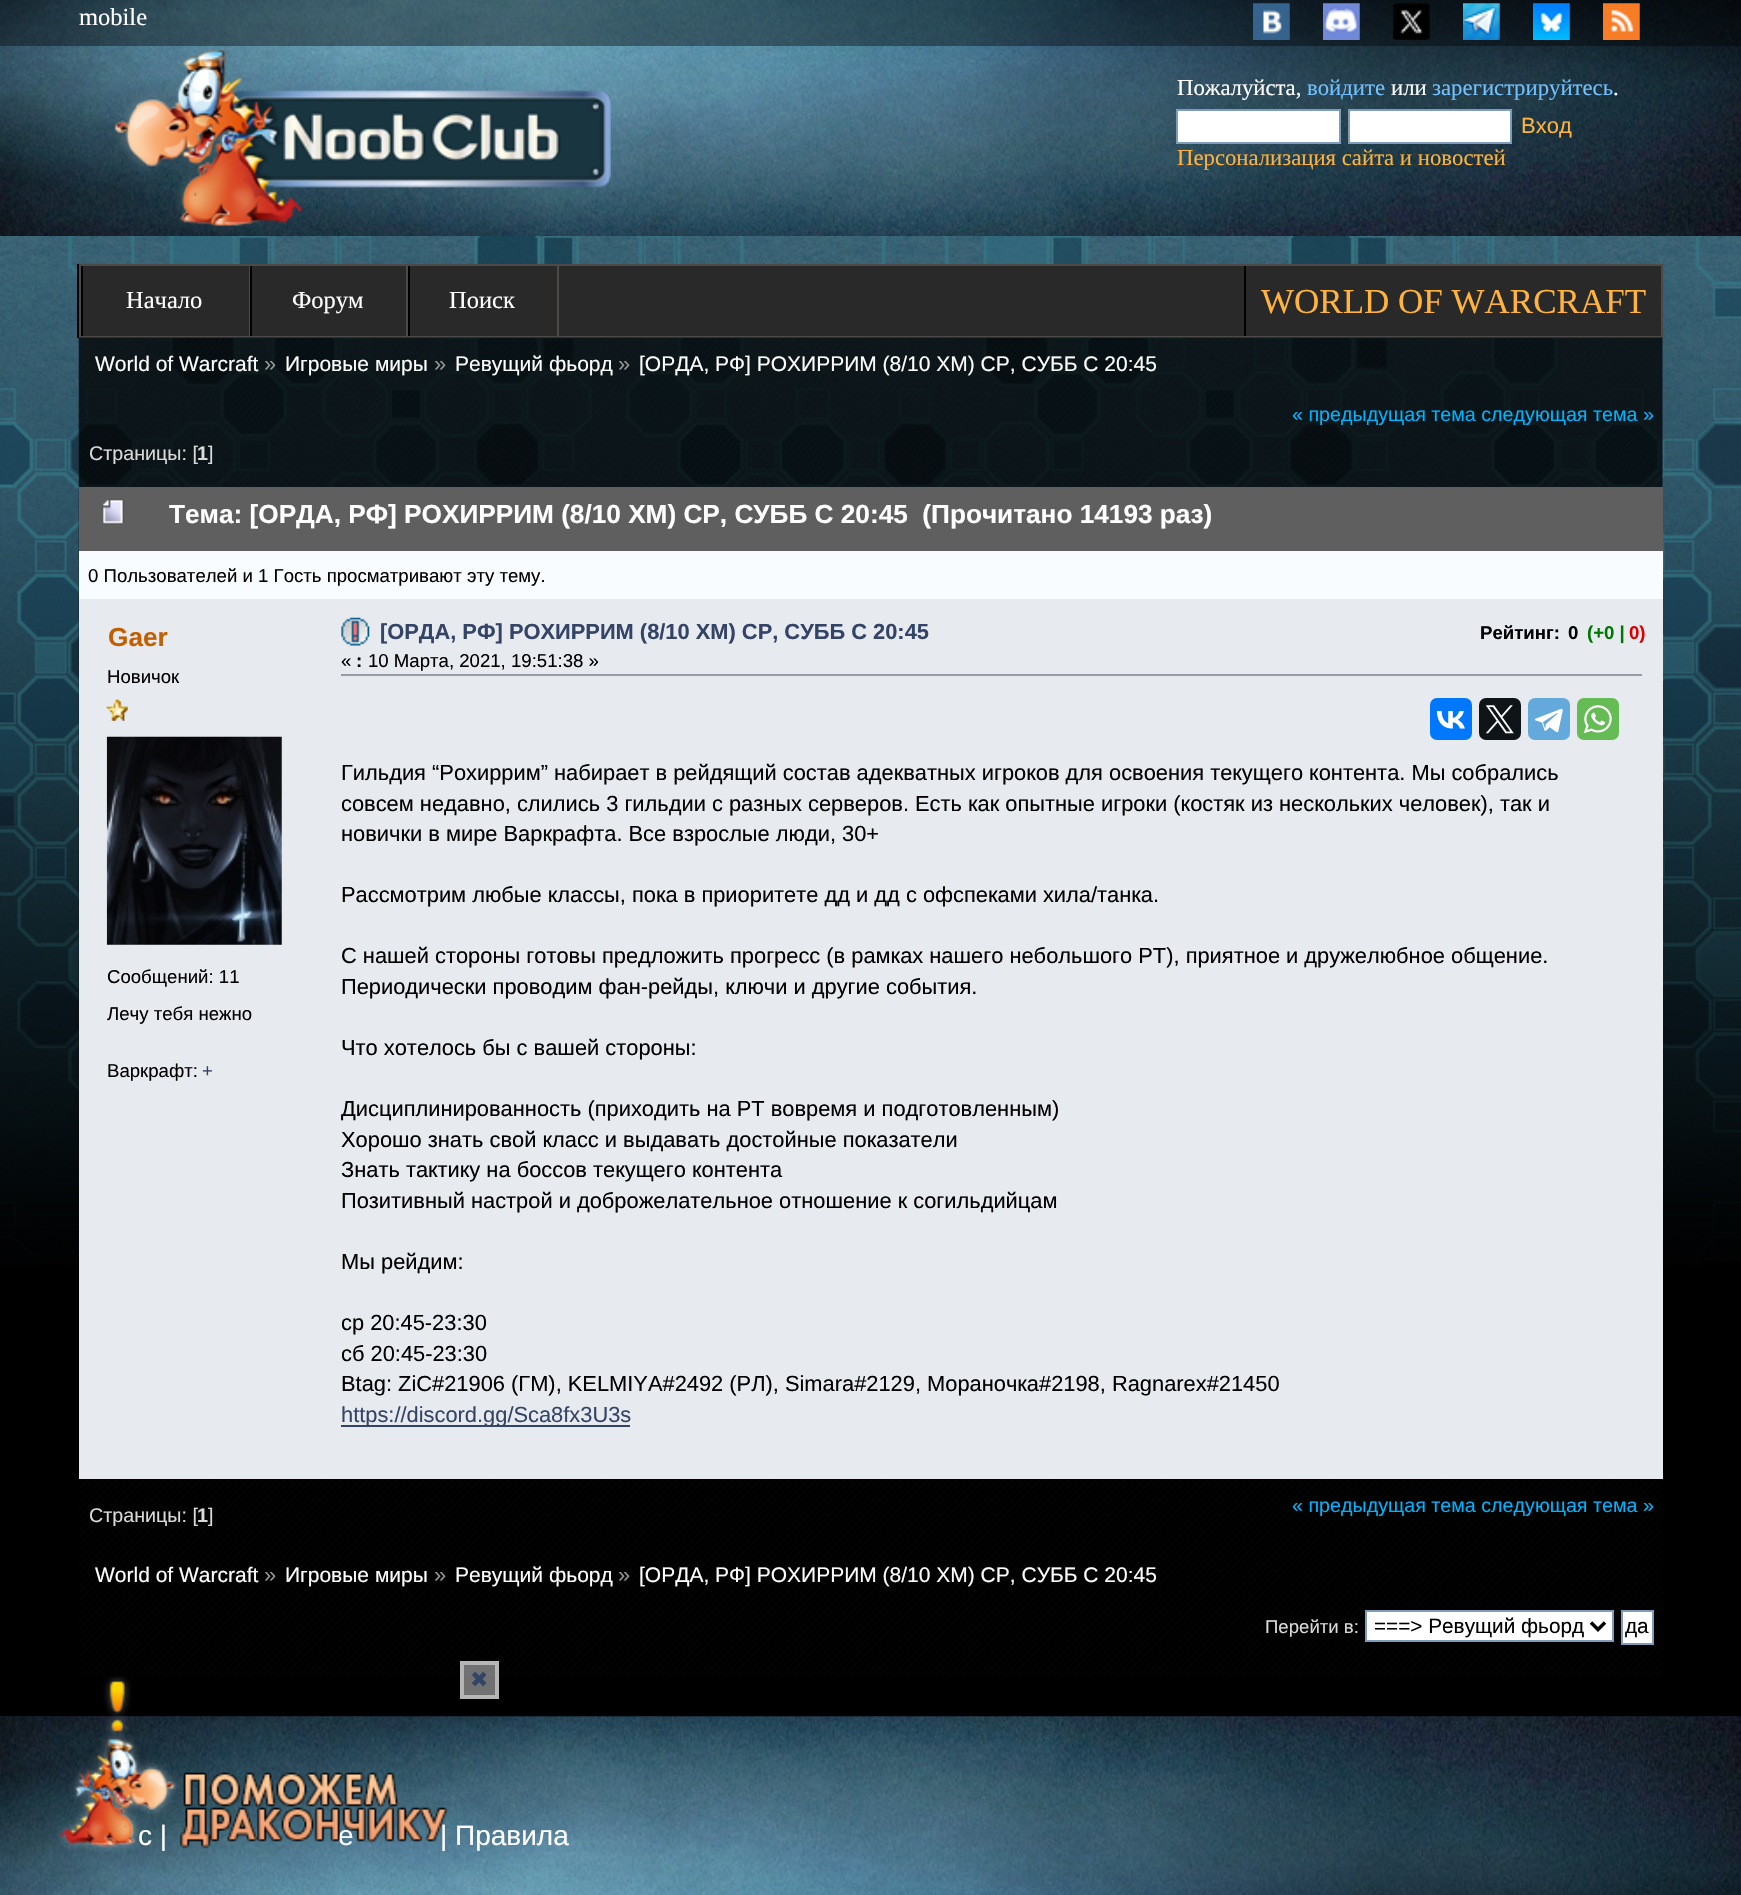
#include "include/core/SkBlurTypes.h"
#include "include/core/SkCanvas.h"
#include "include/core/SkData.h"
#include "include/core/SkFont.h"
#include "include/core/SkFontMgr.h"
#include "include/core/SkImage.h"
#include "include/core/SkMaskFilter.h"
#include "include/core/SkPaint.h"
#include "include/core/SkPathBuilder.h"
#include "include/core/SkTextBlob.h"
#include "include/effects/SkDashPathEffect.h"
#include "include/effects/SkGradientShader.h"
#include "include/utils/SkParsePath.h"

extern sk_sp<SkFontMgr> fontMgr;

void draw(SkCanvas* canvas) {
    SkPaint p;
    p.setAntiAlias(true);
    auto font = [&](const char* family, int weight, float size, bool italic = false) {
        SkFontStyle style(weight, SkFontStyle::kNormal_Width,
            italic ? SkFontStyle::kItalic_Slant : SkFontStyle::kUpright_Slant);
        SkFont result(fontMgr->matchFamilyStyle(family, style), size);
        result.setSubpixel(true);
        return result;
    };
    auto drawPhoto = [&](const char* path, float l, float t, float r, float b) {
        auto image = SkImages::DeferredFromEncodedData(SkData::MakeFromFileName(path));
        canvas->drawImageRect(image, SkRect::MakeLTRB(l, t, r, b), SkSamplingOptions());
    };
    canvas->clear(0xFF000000);
    drawPhoto("media/1.png", 0, 236, 1741, 1266);
    drawPhoto("media/2.png", 0, 0, 1741, 236);
    p.setColor(0x66000000);
    canvas->drawRect(SkRect::MakeLTRB(0, 0, 1741, 46), p);
    auto font1 = font("Liberation Serif", 400, 24.5f);
    p.setColor(0xFFFFFFFF);
    canvas->drawString("mobile", 79, 25, font1, p);
    drawPhoto("media/3.png", 1253, 3, 1290, 40);
    drawPhoto("media/4.png", 1323, 3, 1360, 40);
    drawPhoto("media/5.png", 1393, 3, 1430, 40);
    drawPhoto("media/6.png", 1463, 3, 1500, 40);
    drawPhoto("media/7.png", 1533, 3, 1570, 40);
    drawPhoto("media/8.png", 1603, 3, 1640, 40);
    drawPhoto("media/9.png", 114, 50, 611, 226);
    auto font2 = font("Liberation Serif", 400, 22.75f);
    canvas->drawString("Пожалуйста,", 1177, 95, font2, p);
    p.setColor(0xFF71C1FF);
    canvas->drawString("войдите", 1307, 95, font2, p);
    p.setColor(0xFFFFFFFF);
    canvas->drawString("или", 1391, 95, font2, p);
    p.setColor(0xFF71C1FF);
    canvas->drawString("зарегистрируйтесь", 1432, 95, font2, p);
    p.setColor(0xFFFFFFFF);
    canvas->drawString(".", 1613, 95, font2, p);
    canvas->drawRect(SkRect::MakeLTRB(1177, 110, 1340, 143), p);
    p.setStyle(SkPaint::kStroke_Style);
    p.setStrokeWidth(2);
    p.setColor(0xFF7F9DB9);
    canvas->drawRect(SkRect::MakeLTRB(1177, 110, 1340, 143), p);
    p.setStyle(SkPaint::kFill_Style);
    p.setColor(0xFFFFFFFF);
    canvas->drawRect(SkRect::MakeLTRB(1349, 110, 1511, 143), p);
    p.setStyle(SkPaint::kStroke_Style);
    p.setColor(0xFF7F9DB9);
    canvas->drawRect(SkRect::MakeLTRB(1349, 110, 1511, 143), p);
    auto font3 = font("Liberation Sans", 400, 22);
    p.setStyle(SkPaint::kFill_Style);
    p.setColor(0xFFFFB33C);
    canvas->drawString("Вход", 1521, 133, font3, p);
    canvas->drawString("Персонализация сайта и новостей", 1177, 165, font2, p);
    p.setColor(0xFF000000);
    canvas->drawPath(SkPathBuilder().moveTo(77, 264).lineTo(77, 338).lineTo(1661, 338).lineTo(79, 338).lineTo(79, 264).lineTo(1661, 264).close().detach(), p);
    p.setColor(0xFF292929);
    canvas->drawRect(SkRect::MakeLTRB(83, 266, 1661, 336), p);
    p.setStyle(SkPaint::kStroke_Style);
    p.setColor(0xFF4D4946);
    canvas->drawRect(SkRect::MakeLTRB(80, 265, 1662, 337), p);
    p.setStyle(SkPaint::kFill_Style);
    canvas->drawRect(SkRect::MakeLTRB(249, 266, 250, 336), p);
    p.setColor(0xFF000000);
    canvas->drawRect(SkRect::MakeLTRB(81, 266, 83, 336), p);
    p.setColor(0xFFFFFFFF);
    canvas->drawString("Начало", 126, 308, font1, p);
    p.setColor(0xFF4D4946);
    canvas->drawRect(SkRect::MakeLTRB(406, 266, 408, 336), p);
    p.setColor(0xFF000000);
    canvas->drawRect(SkRect::MakeLTRB(250, 266, 252, 336), p);
    p.setColor(0xFFFFFFFF);
    canvas->drawString("Форум", 292, 308, font1, p);
    p.setColor(0xFF4D4946);
    canvas->drawRect(SkRect::MakeLTRB(557, 266, 559, 336), p);
    p.setColor(0xFF000000);
    canvas->drawRect(SkRect::MakeLTRB(408, 266, 410, 336), p);
    p.setColor(0xFFFFFFFF);
    canvas->drawString("Поиск", 449, 308, font1, p);
    p.setColor(0xFF000000);
    canvas->drawRect(SkRect::MakeLTRB(1244, 266, 1246, 336), p);
    auto font4 = font("Liberation Serif", 400, 35);
    p.setColor(0xFFFFB33C);
    canvas->drawString("WORLD OF WARCRAFT", 1261, 313, font4, p);
    drawPhoto("media/10.png", 78, 337, 1663, 1676);
    auto font5 = font("Liberation Sans", 400, 21);
    p.setColor(0xFFFFFFFF);
    canvas->drawString("World of Warcraft", 95, 371, font5, p);
    auto font6 = font("Liberation Sans", 400, 21.85f);
    p.setColor(0xFF999999);
    canvas->drawString("»", 264, 371, font6, p);
    p.setColor(0xFFFFFFFF);
    canvas->drawString("Игровые миры", 285, 371, font5, p);
    p.setColor(0xFF999999);
    canvas->drawString("»", 434, 371, font6, p);
    p.setColor(0xFFFFFFFF);
    canvas->drawString("Ревущий фьорд", 455, 371, font5, p);
    p.setColor(0xFF999999);
    canvas->drawString("»", 618, 371, font6, p);
    p.setColor(0xFFFFFFFF);
    canvas->drawString("[ОРДА, РФ] РОХИРРИМ (8/10 ХМ) СР, СУББ С 20:45", 639, 371, font5, p);
    auto font7 = font("Liberation Sans", 400, 19.7f);
    p.setColor(0xFF00B3FE);
    canvas->drawString("« предыдущая тема следующая тема »", 1292, 421, font7, p);
    p.setColor(0xFFDBD8D8);
    canvas->drawString("Страницы: [", 89, 460, font7, p);
    auto font8 = font("Liberation Sans", 700, 19.7f);
    canvas->drawString("1", 197, 460, font8, p);
    canvas->drawString("]", 208, 460, font7, p);
    p.setColor(0xFF5F5F5F);
    canvas->drawRect(SkRect::MakeLTRB(79, 487, 1663, 551), p);
    drawPhoto("media/11.png", 101, 498, 125, 525);
    auto font9 = font("Liberation Sans", 700, 26.2f);
    p.setColor(0xFFFFFFFF);
    canvas->drawString("Тема: [ОРДА, РФ] РОХИРРИМ (8/10 ХМ) СР, СУББ С 20:45  (Прочитано 14193 раз)", 169, 523, font9, p);
    p.setColor(0xFFF9FCFF);
    canvas->drawRect(SkRect::MakeLTRB(79, 551, 1663, 599), p);
    auto font10 = font("Liberation Sans", 400, 18.6f);
    p.setColor(0xFF000000);
    canvas->drawString("0 Пользователей и 1 Гость просматривают эту тему.", 88, 582, font10, p);
    p.setColor(0xFFE7EAEF);
    canvas->drawRect(SkRect::MakeLTRB(79, 599, 1663, 1479), p);
    p.setColor(0xFFC06002);
    canvas->drawString("Gaer", 108, 646, font9, p);
    p.setColor(0xFF000000);
    canvas->drawString("Новичок", 107, 683, font10, p);
    drawPhoto("media/12.png", 106, 699, 128, 721);
    drawPhoto("media/13.png", 106, 736, 282, 945);
    {
        const struct { const char* s; float x, y; } items[] = {
            {"Сообщений: 11", 107, 983},
            {"Лечу тебя нежно", 107, 1020},
            {"Варкрафт:", 107, 1077},
        };
        for (auto [s, x, y] : items) {
            canvas->drawString(s, x, y, font10, p);
        }
    }
    p.setColor(0xFF334466);
    canvas->drawString("+", 202, 1077, font10, p);
    drawPhoto("media/14.png", 341, 617, 370, 646);
    auto font11 = font("Liberation Sans", 700, 21.85f);
    canvas->drawString("[ОРДА, РФ] РОХИРРИМ (8/10 ХМ) СР, СУББ С 20:45", 380, 639, font11, p);
    p.setColor(0xFF000000);
    canvas->drawString("«", 341, 667, font10, p);
    auto font12 = font("Liberation Sans", 700, 18.6f);
    canvas->drawString(":", 356, 667, font12, p);
    canvas->drawString("10 Марта, 2021, 19:51:38 »", 368, 667, font10, p);
    canvas->drawString("Рейтинг:", 1480, 639, font12, p);
    canvas->drawString("0", 1568, 639, font12, p);
    p.setColor(0xFF007700);
    canvas->drawString("(+0 |", 1587, 639, font12, p);
    p.setColor(0xFFDD0000);
    canvas->drawString("0)", 1629, 639, font12, p);
    p.setColor(0xFF9999AA);
    canvas->drawRect(SkRect::MakeLTRB(341, 674, 1642, 676), p);
    p.setColor(0xFF0077FF);
    canvas->drawRoundRect(SkRect::MakeLTRB(1430, 698, 1472, 740), 7, 7, p);
    drawPhoto("media/15.png", 1436, 711, 1465, 729);
    p.setColor(0xFF0F1419);
    canvas->drawRoundRect(SkRect::MakeLTRB(1479, 698, 1521, 740), 7, 7, p);
    drawPhoto("media/16.png", 1485, 705, 1514, 734);
    p.setColor(0xFF64A9DC);
    canvas->drawRoundRect(SkRect::MakeLTRB(1528, 698, 1570, 740), 7, 7, p);
    drawPhoto("media/17.png", 1534, 708, 1563, 733);
    p.setColor(0xFF65BC54);
    canvas->drawRoundRect(SkRect::MakeLTRB(1577, 698, 1619, 740), 7, 7, p);
    drawPhoto("media/18.png", 1583, 705, 1612, 734);
    p.setColor(0xFF000000);
    {
        const struct { const char* s; float x, y; } items[] = {
            {"Гильдия “Рохиррим” набирает в рейдящий состав адекватных игроков для освоения текущего контента. Мы собрались", 341, 780},
            {"совсем недавно, слились 3 гильдии с разных серверов. Есть как опытные игроки (костяк из нескольких человек), так и", 341, 811},
            {"новички в мире Варкрафта. Все взрослые люди, 30+", 341, 841},
            {"Рассмотрим любые классы, пока в приоритете дд и дд с офспеками хила/танка.", 341, 902},
            {"С нашей стороны готовы предложить прогресс (в рамках нашего небольшого РТ), приятное и дружелюбное общение.", 341, 963},
            {"Периодически проводим фан-рейды, ключи и другие события.", 341, 994},
            {"Что хотелось бы с вашей стороны:", 341, 1055},
            {"Дисциплинированность (приходить на РТ вовремя и подготовленным)", 341, 1116},
            {"Хорошо знать свой класс и выдавать достойные показатели", 341, 1147},
            {"Знать тактику на боссов текущего контента", 341, 1177},
            {"Позитивный настрой и доброжелательное отношение к согильдийцам", 341, 1208},
            {"Мы рейдим:", 341, 1269},
            {"ср 20:45-23:30", 341, 1330},
            {"сб 20:45-23:30", 341, 1361},
            {"Btag: ZiC#21906 (ГМ), KELMIYA#2492 (РЛ), Simara#2129, Мораночка#2198, Ragnarex#21450", 341, 1391},
        };
        for (auto [s, x, y] : items) {
            canvas->drawString(s, x, y, font6, p);
        }
    }
    p.setColor(0xFF334466);
    canvas->drawRect(SkRect::MakeLTRB(341, 1425, 630, 1427), p);
    canvas->drawString("https://discord.gg/Sca8fx3U3s", 341, 1422, font6, p);
    p.setColor(0xFFDBD8D8);
    canvas->drawString("Страницы: [", 89, 1522, font7, p);
    canvas->drawString("1", 197, 1522, font8, p);
    canvas->drawString("]", 208, 1522, font7, p);
    p.setColor(0xFF00B3FE);
    canvas->drawString("« предыдущая тема следующая тема »", 1292, 1512, font7, p);
    p.setColor(0xFFFFFFFF);
    canvas->drawString("World of Warcraft", 95, 1582, font5, p);
    p.setColor(0xFF999999);
    canvas->drawString("»", 264, 1582, font6, p);
    p.setColor(0xFFFFFFFF);
    canvas->drawString("Игровые миры", 285, 1582, font5, p);
    p.setColor(0xFF999999);
    canvas->drawString("»", 434, 1582, font6, p);
    p.setColor(0xFFFFFFFF);
    canvas->drawString("Ревущий фьорд", 455, 1582, font5, p);
    p.setColor(0xFF999999);
    canvas->drawString("»", 618, 1582, font6, p);
    p.setColor(0xFFFFFFFF);
    canvas->drawString("[ОРДА, РФ] РОХИРРИМ (8/10 ХМ) СР, СУББ С 20:45", 639, 1582, font5, p);
    p.setColor(0xFFDBD8D8);
    canvas->drawString("Перейти в:", 1265, 1633, font10, p);
    p.setColor(0xFFFFFFFF);
    canvas->drawRect(SkRect::MakeLTRB(1366, 1611, 1613, 1641), p);
    p.setStyle(SkPaint::kStroke_Style);
    p.setColor(0xFF7F9DB9);
    canvas->drawRect(SkRect::MakeLTRB(1366, 1611, 1613, 1641), p);
    p.setStrokeWidth(3.5f);
    p.setColor(0xFF000000);
    canvas->drawPath(SkPathBuilder().moveTo(1591, 1622.5f).lineTo(1598, 1629.5f).lineTo(1605, 1622.5f).detach(), p);
    auto font13 = font("Liberation Sans", 400, 20.75f);
    p.setStyle(SkPaint::kFill_Style);
    canvas->drawString("===> Ревущий фьорд", 1374, 1633, font13, p);
    p.setColor(0xFFFFFFFF);
    canvas->drawRect(SkRect::MakeLTRB(1622, 1611, 1653, 1644), p);
    p.setStyle(SkPaint::kStroke_Style);
    p.setStrokeWidth(2);
    p.setColor(0xFF7F9DB9);
    canvas->drawRect(SkRect::MakeLTRB(1622, 1611, 1653, 1644), p);
    p.setStyle(SkPaint::kFill_Style);
    p.setColor(0xFF000000);
    canvas->drawString("да", 1625, 1633, font13, p);
    drawPhoto("media/20.png", 0, 1716, 1741, 1717);
    drawPhoto("media/21.png", 0, 1716, 1741, 1895);
    auto font14 = font("Liberation Sans", 400, 28);
    p.setColor(0xFFFFFFFF);
    {
        const struct { const char* s; float x, y; } items[] = {
            {"с |", 138, 1845},
            {"е", 338, 1845},
            {"| Правила", 440, 1845},
        };
        for (auto [s, x, y] : items) {
            canvas->drawString(s, x, y, font14, p);
        }
    }
    drawPhoto("media/19.png", 57, 1676, 449, 1852);
    p.setColor(0x7AECECEC);
    canvas->drawRect(SkRect::MakeLTRB(462, 1663, 497, 1697), p);
    p.setStyle(SkPaint::kStroke_Style);
    p.setStrokeWidth(4);
    p.setColor(0xFFB5B5B5);
    canvas->drawRect(SkRect::MakeLTRB(462, 1663, 497, 1697), p);
    auto font15 = font("DejaVu Sans", 400, 21.85f);
    p.setStyle(SkPaint::kFill_Style);
    p.setColor(0xFF334466);
    canvas->drawString("✖", 470, 1687, font15, p);
}
